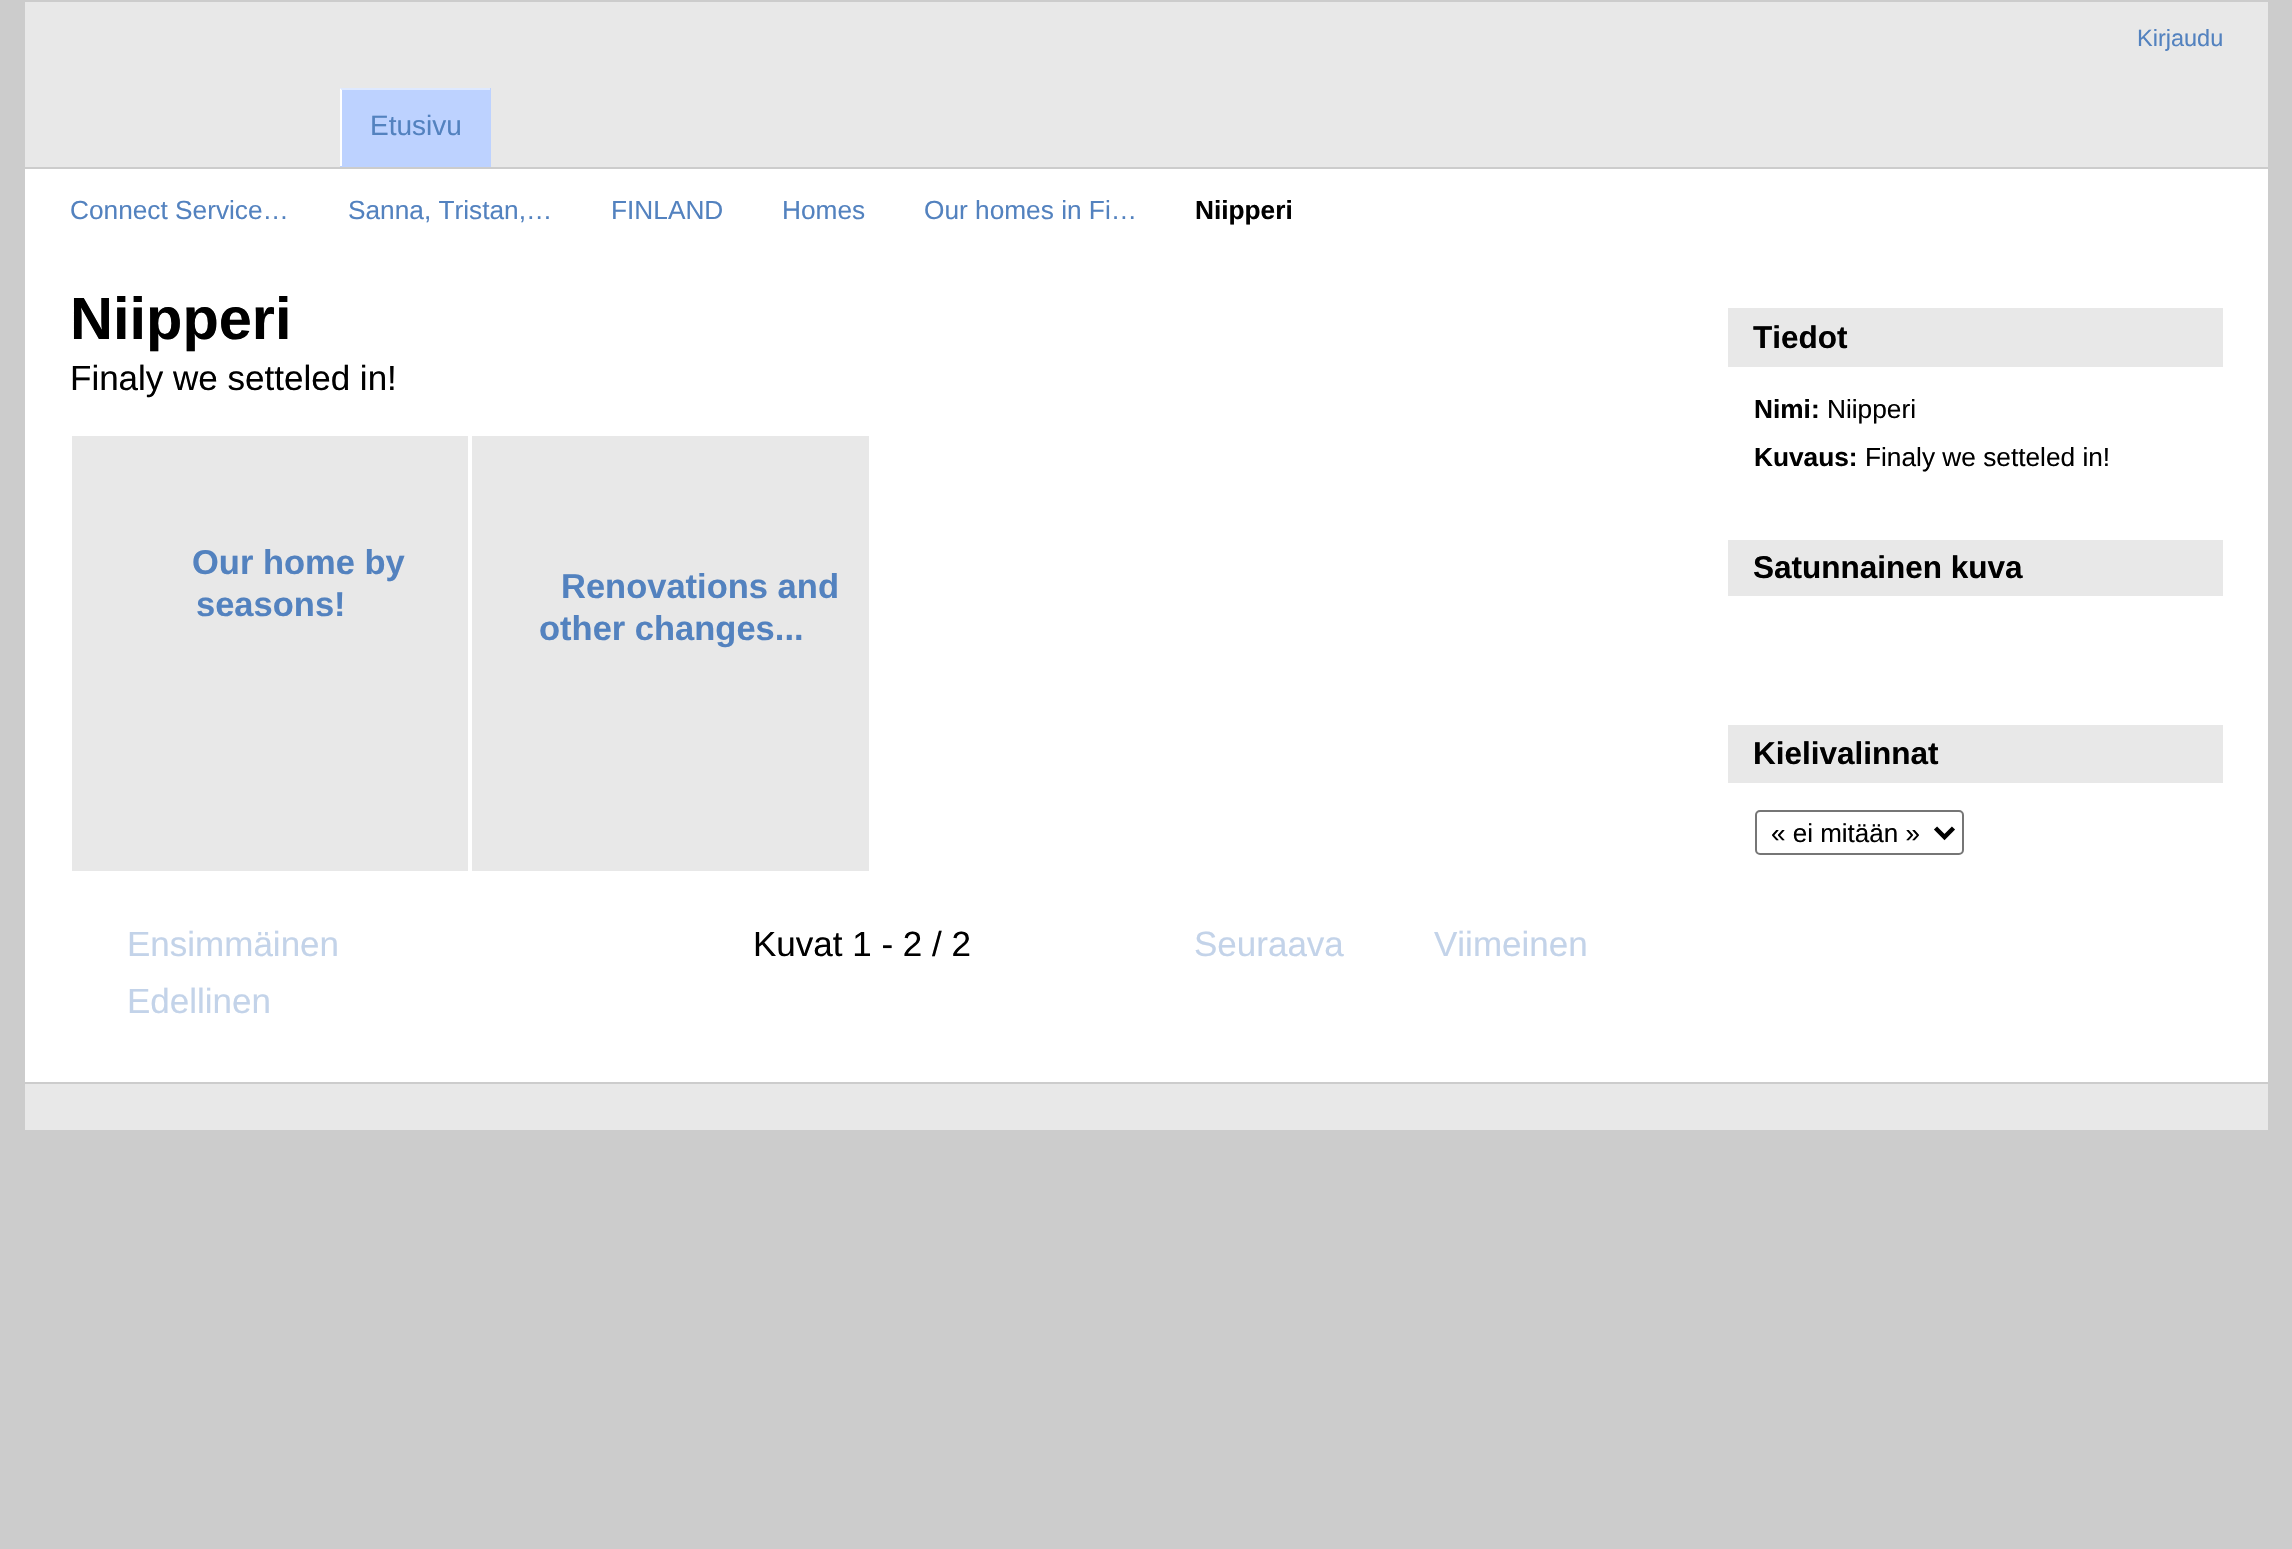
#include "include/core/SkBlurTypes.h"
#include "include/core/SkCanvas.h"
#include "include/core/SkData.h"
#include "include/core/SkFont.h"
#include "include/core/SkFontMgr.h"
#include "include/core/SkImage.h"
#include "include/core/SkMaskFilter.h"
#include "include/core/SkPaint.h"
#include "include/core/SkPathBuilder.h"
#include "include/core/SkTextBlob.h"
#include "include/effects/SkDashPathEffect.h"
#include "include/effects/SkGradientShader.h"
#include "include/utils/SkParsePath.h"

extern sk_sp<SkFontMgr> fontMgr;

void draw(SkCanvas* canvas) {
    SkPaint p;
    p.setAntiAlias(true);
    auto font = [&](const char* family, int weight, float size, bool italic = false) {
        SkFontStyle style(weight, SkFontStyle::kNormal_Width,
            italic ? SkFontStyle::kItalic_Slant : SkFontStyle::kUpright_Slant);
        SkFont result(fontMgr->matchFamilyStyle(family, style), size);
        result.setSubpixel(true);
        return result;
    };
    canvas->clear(0xFFCCCCCC);
    p.setColor(0xFFFFFFFF);
    canvas->drawRect(SkRect::MakeLTRB(25, 169, 2268, 1082), p);
    p.setColor(0xFFE8E8E8);
    canvas->drawRect(SkRect::MakeLTRB(25, 2, 2268, 167), p);
    auto font1 = font("Liberation Sans", 400, 23.5f);
    p.setColor(0xFF5382BF);
    canvas->drawString("Kirjaudu", 2137, 46, font1, p);
    p.setColor(0xFFBDD2FF);
    canvas->drawRect(SkRect::MakeLTRB(340, 88, 491, 167), p);
    p.setColor(0xFFDEE9FF);
    canvas->drawPath(SkPathBuilder().moveTo(340, 88).lineTo(490, 88).lineTo(490, 90).lineTo(342, 90).close().detach(), p);
    p.setColor(0xFFFFFFFF);
    canvas->drawPath(SkPathBuilder().moveTo(340, 166).lineTo(340, 88).lineTo(342, 90).lineTo(342, 166).close().detach(), p);
    auto font2 = font("Liberation Sans", 400, 28);
    p.setColor(0xFF5382BF);
    canvas->drawString("Etusivu", 370, 135, font2, p);
    auto font3 = font("Liberation Sans", 400, 26.25f);
    {
        const struct { const char* s; float x, y; } items[] = {
            {"Connect Service…", 70, 219},
            {"Sanna, Tristan,…", 348, 219},
            {"FINLAND", 611, 219},
            {"Homes", 782, 219},
            {"Our homes in Fi…", 924, 219},
        };
        for (auto [s, x, y] : items) {
            canvas->drawString(s, x, y, font3, p);
        }
    }
    auto font4 = font("Liberation Sans", 700, 26.25f);
    p.setColor(0xFF000000);
    canvas->drawString("Niipperi", 1195, 219, font4, p);
    auto font5 = font("Liberation Sans", 700, 59.5f);
    canvas->drawString("Niipperi", 70, 339, font5, p);
    auto font6 = font("Liberation Sans", 400, 35);
    canvas->drawString("Finaly we setteled in!", 70, 390, font6, p);
    p.setColor(0xFFE8E8E8);
    canvas->drawRect(SkRect::MakeLTRB(72, 436, 468, 871), p);
    auto font7 = font("Liberation Sans", 700, 34.5f);
    p.setColor(0xFF5382BF);
    canvas->drawString("Our home by", 192, 574, font7, p);
    canvas->drawString("seasons!", 196, 616, font7, p);
    p.setColor(0xFFE8E8E8);
    canvas->drawRect(SkRect::MakeLTRB(472, 436, 869, 871), p);
    p.setColor(0xFF5382BF);
    canvas->drawString("Renovations and", 561, 598, font7, p);
    canvas->drawString("other changes...", 539, 640, font7, p);
    p.setColor(0xFFC3D3E9);
    canvas->drawString("Ensimmäinen", 127, 956, font6, p);
    canvas->drawString("Edellinen", 127, 1013, font6, p);
    p.setColor(0xFF000000);
    canvas->drawString("Kuvat 1 - 2 / 2", 753, 956, font6, p);
    p.setColor(0xFFC3D3E9);
    canvas->drawString("Seuraava", 1194, 956, font6, p);
    canvas->drawString("Viimeinen", 1434, 956, font6, p);
    p.setColor(0xFFE8E8E8);
    canvas->drawRect(SkRect::MakeLTRB(1728, 308, 2223, 367), p);
    auto font8 = font("Liberation Sans", 700, 31.5f);
    p.setColor(0xFF000000);
    canvas->drawString("Tiedot", 1753, 348, font8, p);
    canvas->drawString("Nimi:", 1754, 418, font4, p);
    canvas->drawString("Niipperi", 1827, 418, font3, p);
    canvas->drawString("Kuvaus:", 1754, 466, font4, p);
    canvas->drawString("Finaly we setteled in!", 1865, 466, font3, p);
    p.setColor(0xFFE8E8E8);
    canvas->drawRect(SkRect::MakeLTRB(1728, 540, 2223, 596), p);
    p.setColor(0xFF000000);
    canvas->drawString("Satunnainen kuva", 1753, 578, font8, p);
    p.setColor(0xFFE8E8E8);
    canvas->drawRect(SkRect::MakeLTRB(1728, 725, 2223, 783), p);
    p.setColor(0xFF000000);
    canvas->drawString("Kielivalinnat", 1753, 764, font8, p);
    p.setStyle(SkPaint::kStroke_Style);
    p.setStrokeWidth(2);
    p.setColor(0xFF767676);
    canvas->drawRoundRect(SkRect::MakeLTRB(1756, 811, 1963, 854), 4, 4, p);
    p.setStrokeWidth(4.5f);
    p.setColor(0xFF000000);
    canvas->drawPath(SkPathBuilder().moveTo(1935.5f, 828).lineTo(1944.5f, 837).lineTo(1953.5f, 828).detach(), p);
    auto font9 = font("Liberation Sans", 400, 26);
    p.setStyle(SkPaint::kFill_Style);
    canvas->drawString("« ei mitään »", 1771, 842, font9, p);
    p.setColor(0xFFE8E8E8);
    canvas->drawRect(SkRect::MakeLTRB(25, 1084, 2268, 1130), p);
}
